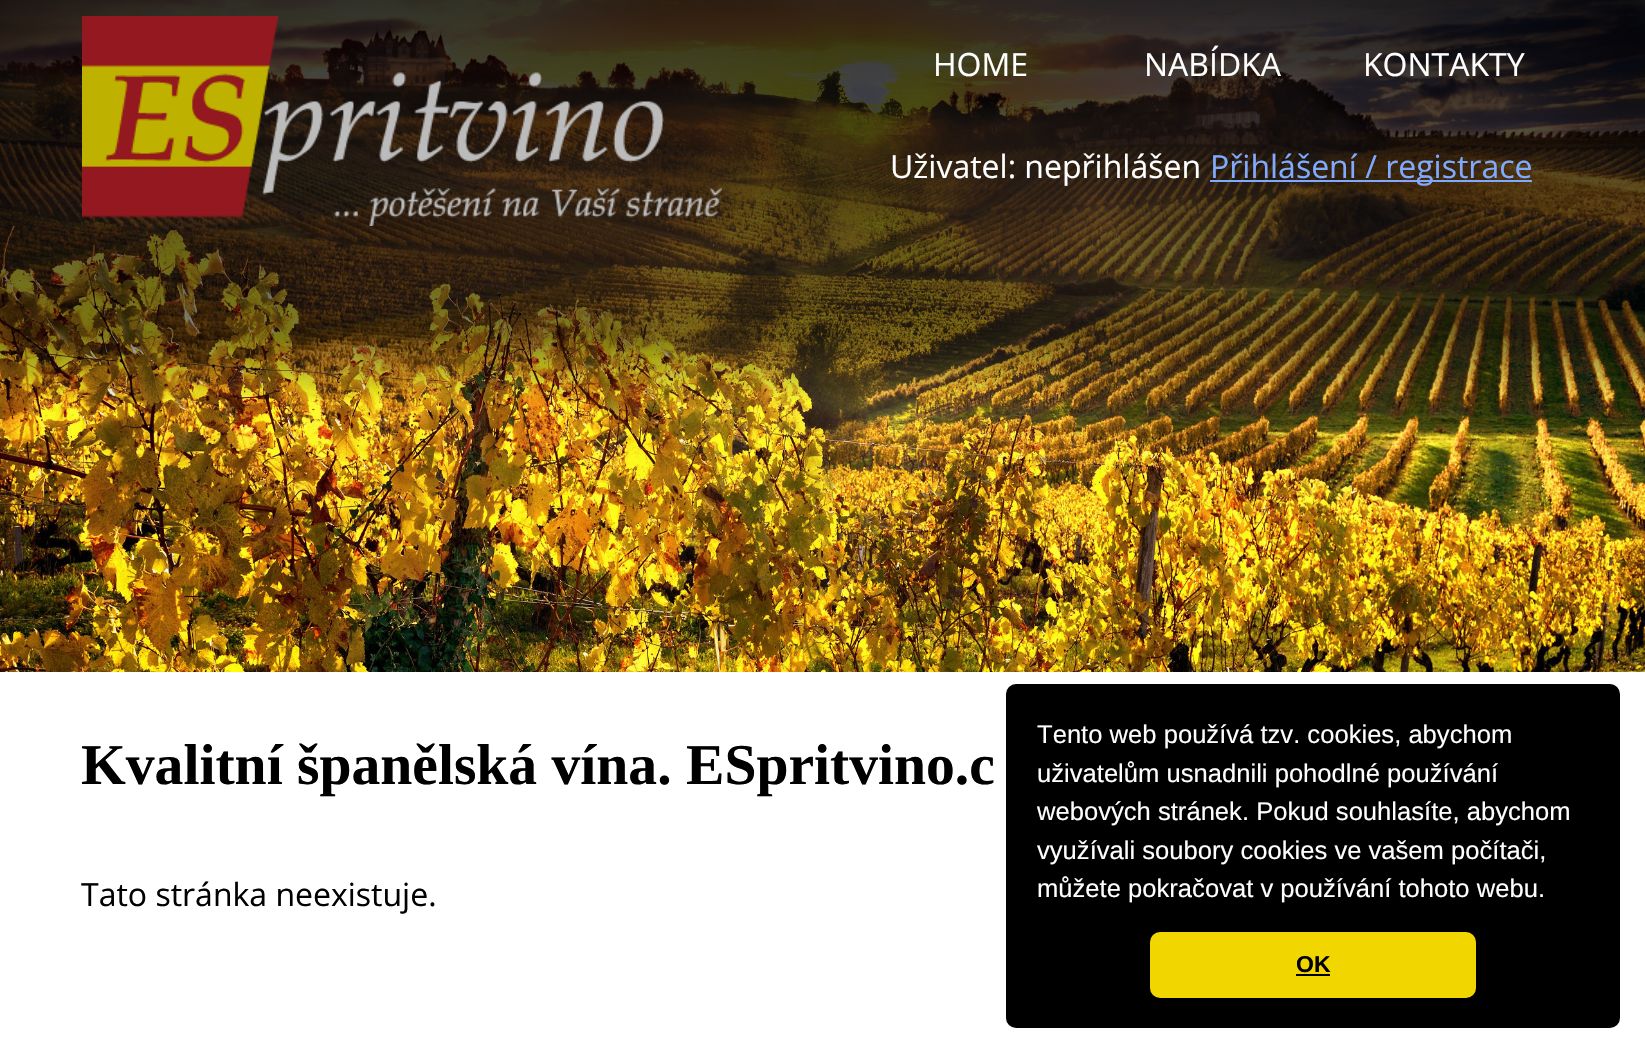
#include "include/core/SkBlurTypes.h"
#include "include/core/SkCanvas.h"
#include "include/core/SkData.h"
#include "include/core/SkFont.h"
#include "include/core/SkFontMgr.h"
#include "include/core/SkImage.h"
#include "include/core/SkMaskFilter.h"
#include "include/core/SkPaint.h"
#include "include/core/SkPathBuilder.h"
#include "include/core/SkTextBlob.h"
#include "include/effects/SkDashPathEffect.h"
#include "include/effects/SkGradientShader.h"
#include "include/utils/SkParsePath.h"

extern sk_sp<SkFontMgr> fontMgr;

void draw(SkCanvas* canvas) {
    SkPaint p;
    p.setAntiAlias(true);
    auto font = [&](const char* family, int weight, float size, bool italic = false) {
        SkFontStyle style(weight, SkFontStyle::kNormal_Width,
            italic ? SkFontStyle::kItalic_Slant : SkFontStyle::kUpright_Slant);
        SkFont result(fontMgr->matchFamilyStyle(family, style), size);
        result.setSubpixel(true);
        return result;
    };
    auto drawPhoto = [&](const char* path, float l, float t, float r, float b) {
        auto image = SkImages::DeferredFromEncodedData(SkData::MakeFromFileName(path));
        canvas->drawImageRect(image, SkRect::MakeLTRB(l, t, r, b), SkSamplingOptions());
    };
    canvas->clear(0xFFFFFFFF);
    drawPhoto("media/1.png", 0, 0, 1645, 672);
    drawPhoto("media/2.png", 82, 16, 722, 226);
    auto font1 = font("Open Sans", 400, 32);
    p.setColor(0xFFFFFFFF);
    {
        const struct { const char* s; float x, y; } items[] = {
            {"HOME", 933, 76},
            {"NABÍDKA", 1144, 76},
            {"KONTAKTY", 1363, 76},
            {"Uživatel: nepřihlášen", 890, 178},
        };
        for (auto [s, x, y] : items) {
            canvas->drawString(s, x, y, font1, p);
        }
    }
    p.setColor(0xFF80AAFF);
    canvas->drawRect(SkRect::MakeLTRB(1210, 180, 1532, 182), p);
    canvas->drawString("Přihlášení / registrace", 1210, 178, font1, p);
    auto font2 = font("Liberation Serif", 700, 57.6f);
    p.setColor(0xFF000000);
    canvas->drawString("Kvalitní španělská vína. ESpritvino.c", 81, 784, font2, p);
    canvas->drawString("Tato stránka neexistuje.", 81, 906, font1, p);
    canvas->drawRoundRect(SkRect::MakeLTRB(1006, 684, 1620, 1028), 10, 10, p);
    auto font3 = font("Liberation Sans", 400, 25.6f);
    p.setColor(0xFFFFFFFF);
    {
        const struct { const char* s; float x, y; } items[] = {
            {"Tento web používá tzv. cookies, abychom", 1037, 743},
            {"uživatelům usnadnili pohodlné používání", 1037, 782},
            {"webových stránek. Pokud souhlasíte, abychom", 1037, 820},
            {"využívali soubory cookies ve vašem počítači,", 1037, 859},
            {"můžete pokračovat v používání tohoto webu.", 1037, 897},
        };
        for (auto [s, x, y] : items) {
            canvas->drawString(s, x, y, font3, p);
        }
    }
    p.setColor(0xFFF1D600);
    canvas->drawRoundRect(SkRect::MakeLTRB(1150, 932, 1476, 998), 10, 10, p);
    auto font4 = font("Liberation Sans", 700, 23);
    p.setColor(0xFF000000);
    canvas->drawString("OK", 1296, 972, font4, p);
    canvas->drawRect(SkRect::MakeLTRB(1296, 974, 1330, 976), p);
}
